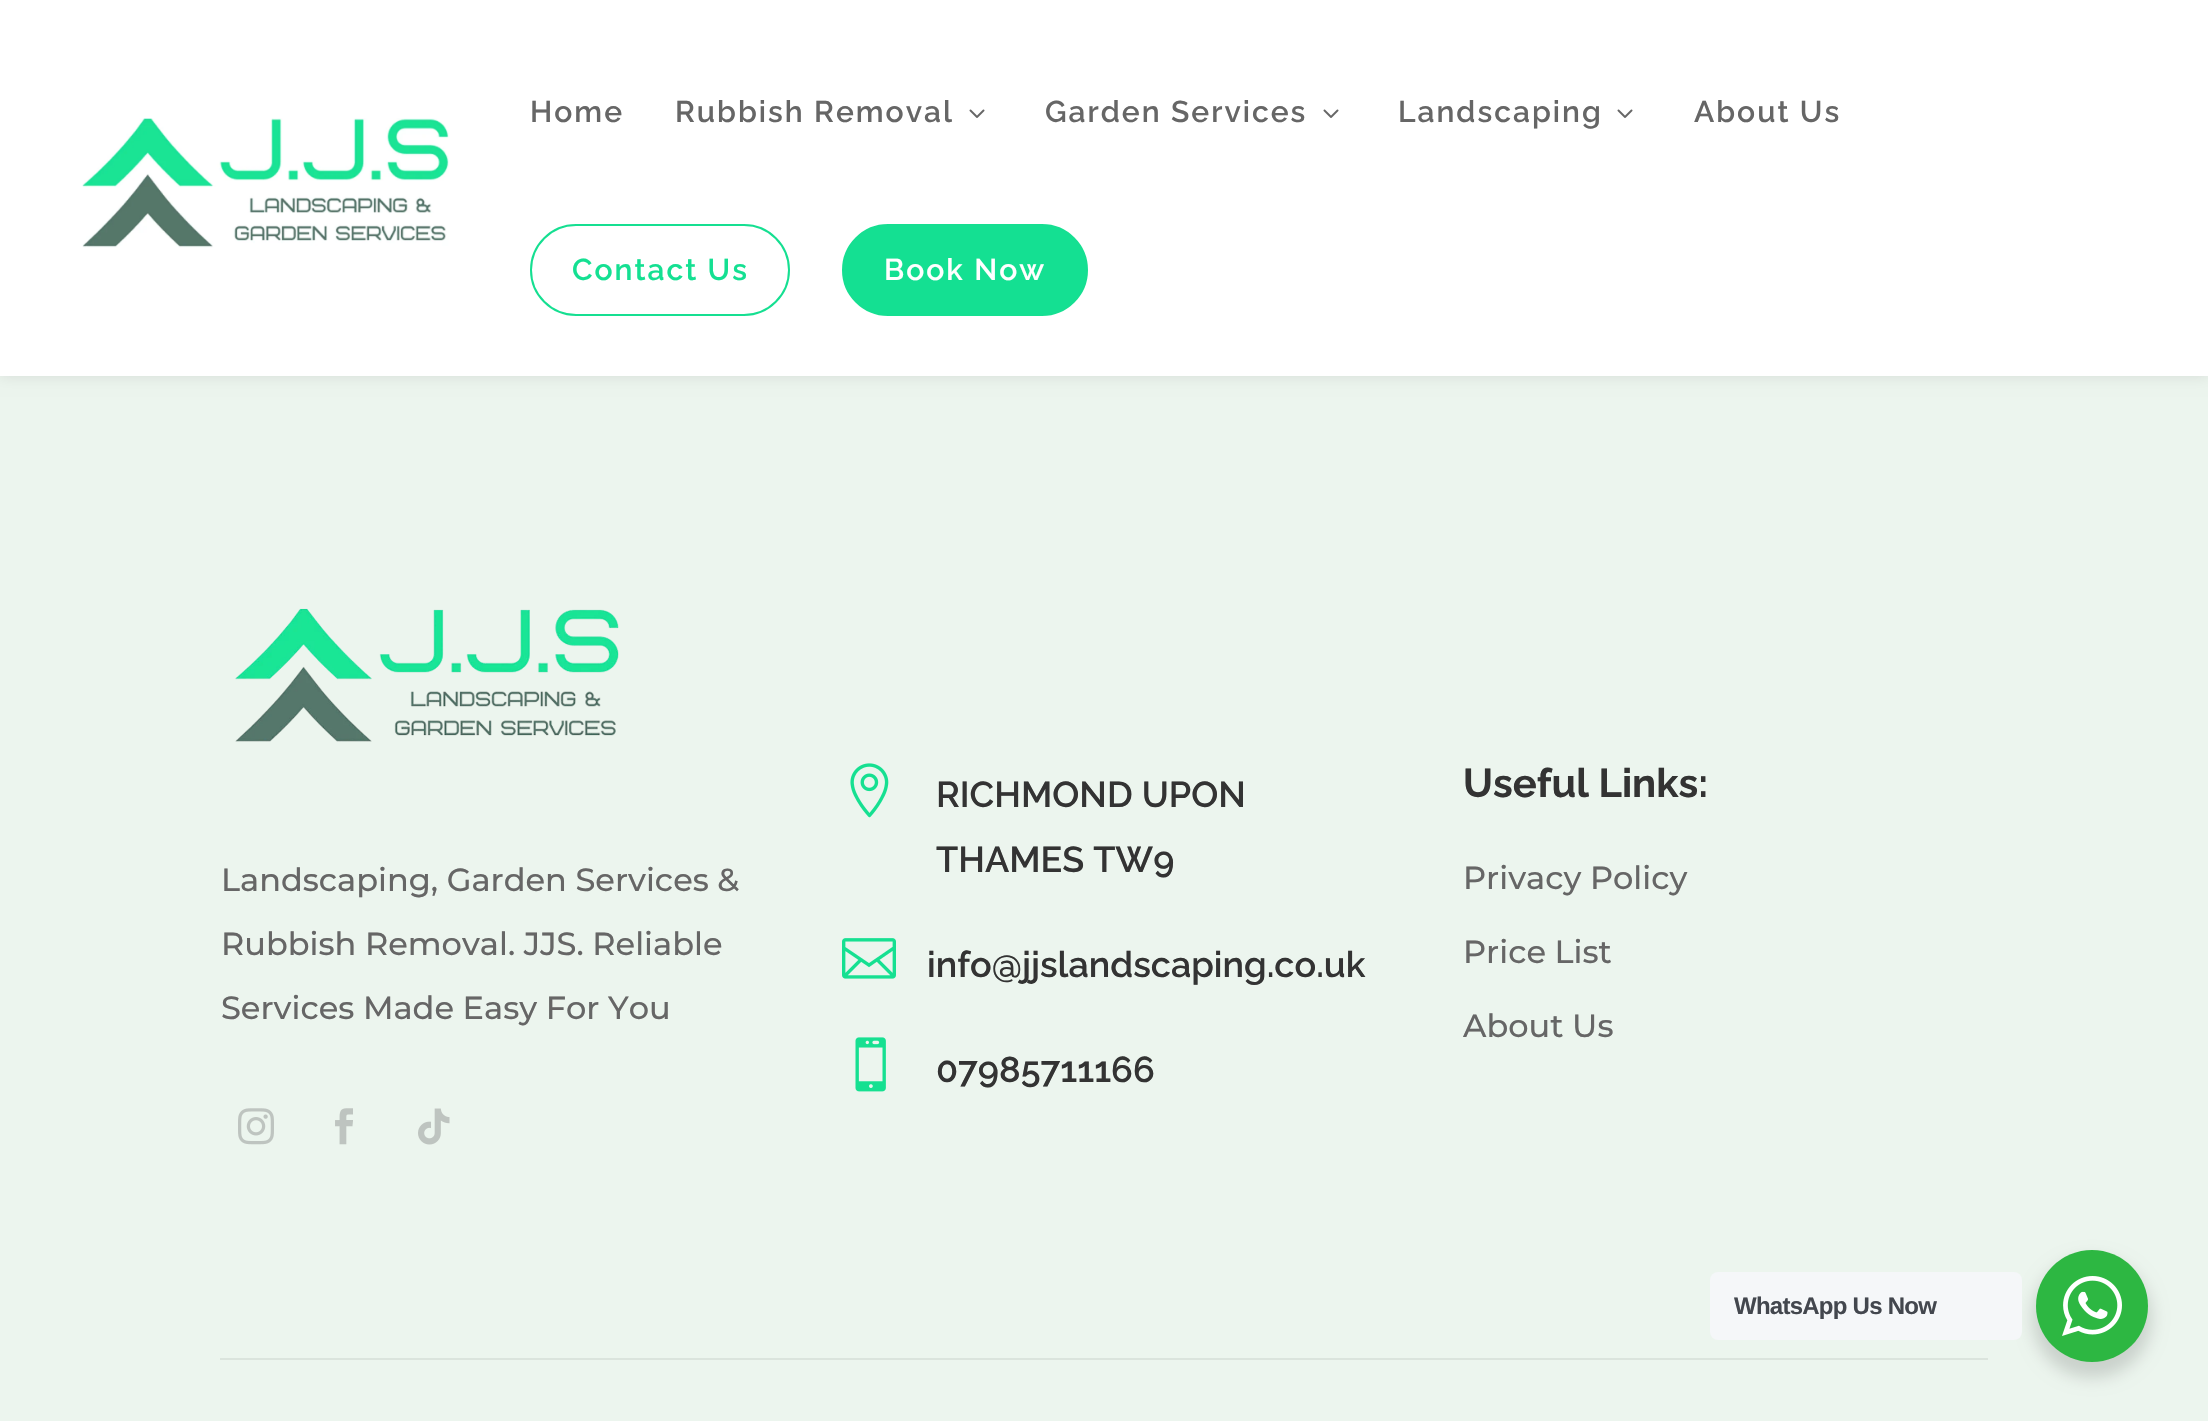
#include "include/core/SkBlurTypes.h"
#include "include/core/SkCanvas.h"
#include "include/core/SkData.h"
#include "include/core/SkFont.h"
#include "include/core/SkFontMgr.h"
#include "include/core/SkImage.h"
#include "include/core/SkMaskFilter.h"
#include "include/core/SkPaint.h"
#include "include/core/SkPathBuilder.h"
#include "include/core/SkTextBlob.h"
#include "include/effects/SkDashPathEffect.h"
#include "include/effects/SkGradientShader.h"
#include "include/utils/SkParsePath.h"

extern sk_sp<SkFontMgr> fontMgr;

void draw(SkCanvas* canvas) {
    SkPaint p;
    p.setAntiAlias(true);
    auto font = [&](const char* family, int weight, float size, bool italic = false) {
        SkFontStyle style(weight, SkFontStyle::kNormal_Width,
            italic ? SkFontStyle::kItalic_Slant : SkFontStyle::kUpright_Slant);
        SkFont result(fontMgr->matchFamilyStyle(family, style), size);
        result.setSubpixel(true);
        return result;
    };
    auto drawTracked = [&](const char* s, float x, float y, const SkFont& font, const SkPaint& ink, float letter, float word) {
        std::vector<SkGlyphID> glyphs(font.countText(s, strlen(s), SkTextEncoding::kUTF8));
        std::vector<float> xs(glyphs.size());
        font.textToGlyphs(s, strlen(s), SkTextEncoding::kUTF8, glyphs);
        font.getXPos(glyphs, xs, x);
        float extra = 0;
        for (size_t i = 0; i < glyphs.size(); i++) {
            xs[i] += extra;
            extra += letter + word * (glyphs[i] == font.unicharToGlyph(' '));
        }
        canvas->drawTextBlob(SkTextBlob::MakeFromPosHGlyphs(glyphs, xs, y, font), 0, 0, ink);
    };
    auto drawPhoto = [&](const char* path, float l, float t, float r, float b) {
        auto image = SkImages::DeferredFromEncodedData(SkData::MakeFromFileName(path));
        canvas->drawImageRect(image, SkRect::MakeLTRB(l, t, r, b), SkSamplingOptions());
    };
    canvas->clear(0xFFECF5EE);
    p.setColor(0x1A000000);
    p.setMaskFilter(SkMaskFilter::MakeBlur(kNormal_SkBlurStyle, 7));
    canvas->drawRect(SkRect::MakeLTRB(0, 0, 2208, 376), p);
    p.setMaskFilter(nullptr);
    p.setColor(0xFFFFFFFF);
    canvas->drawRect(SkRect::MakeLTRB(0, 0, 2208, 376), p);
    drawPhoto("media/1.png", 82, 118, 449, 248);
    auto font1 = font("Raleway", 100, 30);
    p.setColor(0xFF666666);
    drawTracked("Home", 530, 122, font1, p, 2, 0);
    drawTracked("Rubbish Removal", 675, 122, font1, p, 2, 0);
    drawPhoto("media/2.png", 969, 109, 985, 118);
    drawTracked("Garden Services", 1045, 122, font1, p, 2, 0);
    drawPhoto("media/2.png", 1323, 109, 1339, 118);
    drawTracked("Landscaping", 1398, 122, font1, p, 2, 0);
    drawPhoto("media/2.png", 1617, 109, 1633, 118);
    drawTracked("About Us", 1694, 122, font1, p, 2, 0);
    p.setStyle(SkPaint::kStroke_Style);
    p.setStrokeWidth(2);
    p.setColor(0xFF15DF91);
    canvas->drawRoundRect(SkRect::MakeLTRB(531, 225, 789, 315), 45, 45, p);
    p.setStyle(SkPaint::kFill_Style);
    p.setColor(0xFF14E092);
    drawTracked("Contact Us", 572, 280, font1, p, 2, 0);
    canvas->drawRoundRect(SkRect::MakeLTRB(843, 225, 1087, 315), 45, 45, p);
    p.setStyle(SkPaint::kStroke_Style);
    p.setColor(0xFF15DF91);
    canvas->drawRoundRect(SkRect::MakeLTRB(843, 225, 1087, 315), 45, 45, p);
    p.setStyle(SkPaint::kFill_Style);
    p.setColor(0xFFFFFFFF);
    drawTracked("Book Now", 884, 280, font1, p, 2, 0);
    drawPhoto("media/3.png", 235, 608, 619, 742);
    auto font2 = font("Montserrat", 100, 32);
    p.setColor(0xFF666666);
    {
        const struct { const char* s; float x, y; } items[] = {
            {"Landscaping, Garden Services &", 221, 891},
            {"Rubbish Removal. JJS. Reliable", 221, 955},
            {"Services Made Easy For You", 221, 1019},
        };
        for (auto [s, x, y] : items) {
            canvas->drawString(s, x, y, font2, p);
        }
    }
    drawPhoto("media/4.png", 238, 1108, 274, 1145);
    drawPhoto("media/5.png", 335, 1108, 353, 1145);
    drawPhoto("media/6.png", 418, 1108, 450, 1145);
    drawPhoto("media/7.png", 850, 763, 889, 818);
    auto font3 = font("Raleway", 100, 36);
    p.setColor(0xFF333333);
    canvas->drawString("RICHMOND UPON", 936, 807, font3, p);
    canvas->drawString("THAMES TW9", 936, 872, font3, p);
    drawPhoto("media/8.png", 842, 938, 896, 979);
    canvas->drawString("info@jjslandscaping.co.uk", 927, 977, font3, p);
    drawPhoto("media/9.png", 855, 1037, 886, 1092);
    canvas->drawString("07985711166", 936, 1082, font3, p);
    auto font4 = font("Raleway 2", 100, 40);
    canvas->drawString("Useful Links:", 1463, 797, font4, p);
    p.setColor(0xFF666666);
    {
        const struct { const char* s; float x, y; } items[] = {
            {"Privacy Policy", 1463, 889},
            {"Price List", 1463, 963},
            {"About Us", 1463, 1037},
        };
        for (auto [s, x, y] : items) {
            canvas->drawString(s, x, y, font2, p);
        }
    }
    p.setColor(0xFFDBE4DD);
    canvas->drawRect(SkRect::MakeLTRB(220, 1358, 1988, 1360), p);
    p.setColor(0x24000000);
    p.setMaskFilter(SkMaskFilter::MakeBlur(kNormal_SkBlurStyle, 8));
    canvas->drawRoundRect(SkRect::MakeLTRB(2032, 1258, 2152, 1378), 60, 60, p);
    p.setMaskFilter(nullptr);
    p.setColor(0xFFF5F7F9);
    canvas->drawRoundRect(SkRect::MakeLTRB(1710, 1272, 2022, 1340), 8, 8, p);
    auto font5 = font("Liberation Sans", 700, 24);
    p.setColor(0xFF43474E);
    drawTracked("WhatsApp Us Now", 1734, 1314, font5, p, -0.75f, 0);
    p.setColor(0xFF2DB742);
    canvas->drawCircle(2092, 1306, 56, p);
    drawPhoto("media/10.png", 2062, 1276, 2122, 1336);
}
